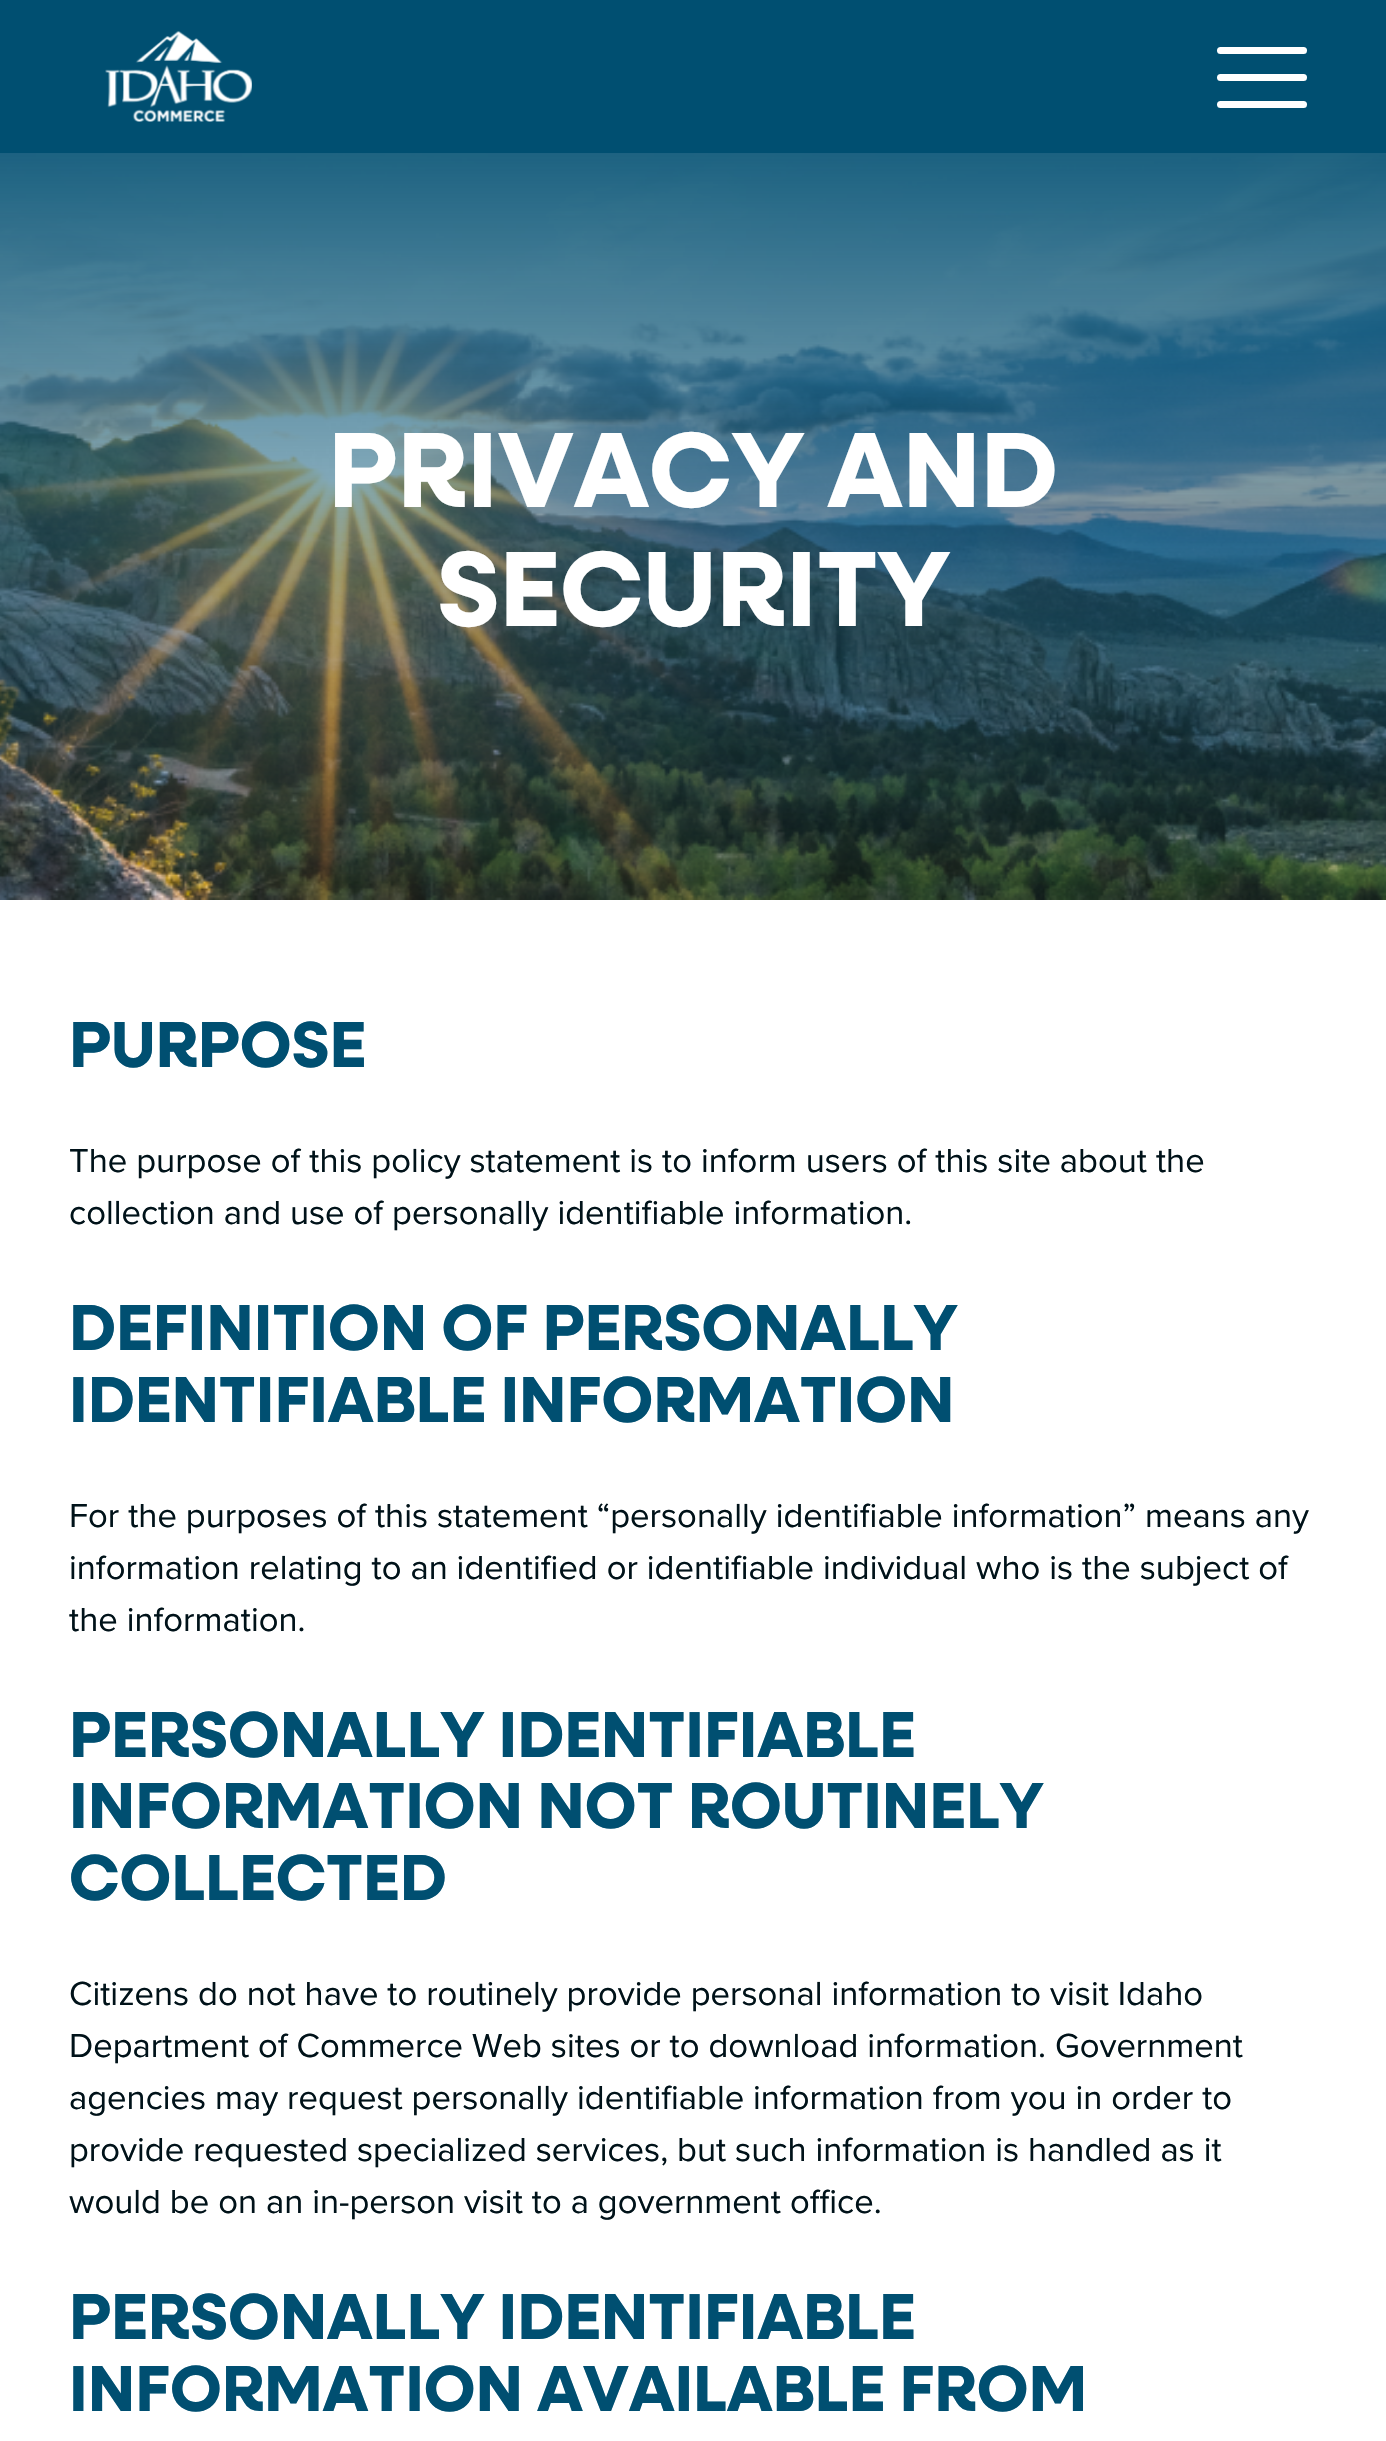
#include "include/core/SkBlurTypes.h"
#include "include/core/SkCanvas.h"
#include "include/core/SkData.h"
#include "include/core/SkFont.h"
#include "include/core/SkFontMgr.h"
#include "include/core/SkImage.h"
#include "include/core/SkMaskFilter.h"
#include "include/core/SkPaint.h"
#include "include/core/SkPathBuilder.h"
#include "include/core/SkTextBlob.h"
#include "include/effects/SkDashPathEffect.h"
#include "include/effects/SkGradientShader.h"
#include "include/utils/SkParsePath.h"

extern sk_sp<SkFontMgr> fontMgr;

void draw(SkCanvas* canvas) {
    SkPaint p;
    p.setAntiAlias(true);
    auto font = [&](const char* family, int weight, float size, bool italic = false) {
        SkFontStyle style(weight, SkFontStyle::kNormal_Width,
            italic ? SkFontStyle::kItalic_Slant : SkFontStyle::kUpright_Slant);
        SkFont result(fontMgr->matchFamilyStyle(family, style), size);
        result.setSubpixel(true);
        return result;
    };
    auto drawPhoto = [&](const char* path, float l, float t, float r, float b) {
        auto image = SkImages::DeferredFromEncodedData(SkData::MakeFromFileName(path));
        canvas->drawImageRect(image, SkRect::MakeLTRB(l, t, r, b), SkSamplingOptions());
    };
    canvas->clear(0xFFFFFFFF);
    p.setColor(0xFF004F71);
    canvas->drawRect(SkRect::MakeLTRB(0, 0, 1386, 153), p);
    drawPhoto("media/1.png", 105, 31, 252, 122);
    p.setColor(0xFFFFFFFF);
    canvas->drawRoundRect(SkRect::MakeLTRB(1217, 74, 1307, 81), 3.5f, 3.5f, p);
    canvas->drawRoundRect(SkRect::MakeLTRB(1217, 47, 1307, 54), 3.5f, 3.5f, p);
    canvas->drawRoundRect(SkRect::MakeLTRB(1217, 101, 1307, 108), 3.5f, 3.5f, p);
    drawPhoto("media/2.png", 0, 153, 1386, 900);
    auto font1 = font("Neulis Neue", 700, 107.25f);
    canvas->drawString("PRIVACY AND", 328, 507, font1, p);
    canvas->drawString("SECURITY", 437, 626, font1, p);
    auto font2 = font("Neulis Neue", 700, 65.1f);
    p.setColor(0xFF004F71);
    canvas->drawString("PURPOSE", 69, 1067, font2, p);
    auto font3 = font("Proxima Nova", 400, 34.6f);
    p.setColor(0xFF001219);
    canvas->drawString("The purpose of this policy statement is to inform users of this site about the", 69, 1172, font3, p);
    canvas->drawString("collection and use of personally identifiable information.", 69, 1224, font3, p);
    p.setColor(0xFF004F71);
    canvas->drawString("DEFINITION OF PERSONALLY", 69, 1350, font2, p);
    canvas->drawString("IDENTIFIABLE INFORMATION", 69, 1422, font2, p);
    p.setColor(0xFF001219);
    {
        const struct { const char* s; float x, y; } items[] = {
            {"For the purposes of this statement “personally identifiable information” means any", 69, 1527},
            {"information relating to an identified or identifiable individual who is the subject of", 69, 1579},
            {"the information.", 69, 1631},
        };
        for (auto [s, x, y] : items) {
            canvas->drawString(s, x, y, font3, p);
        }
    }
    p.setColor(0xFF004F71);
    {
        const struct { const char* s; float x, y; } items[] = {
            {"PERSONALLY IDENTIFIABLE", 69, 1757},
            {"INFORMATION NOT ROUTINELY", 69, 1828},
            {"COLLECTED", 69, 1900},
        };
        for (auto [s, x, y] : items) {
            canvas->drawString(s, x, y, font2, p);
        }
    }
    p.setColor(0xFF001219);
    {
        const struct { const char* s; float x, y; } items[] = {
            {"Citizens do not have to routinely provide personal information to visit Idaho", 69, 2005},
            {"Department of Commerce Web sites or to download information. Government", 69, 2057},
            {"agencies may request personally identifiable information from you in order to", 69, 2109},
            {"provide requested specialized services, but such information is handled as it", 69, 2161},
            {"would be on an in-person visit to a government office.", 69, 2213},
        };
        for (auto [s, x, y] : items) {
            canvas->drawString(s, x, y, font3, p);
        }
    }
    p.setColor(0xFF004F71);
    canvas->drawString("PERSONALLY IDENTIFIABLE", 69, 2339, font2, p);
    canvas->drawString("INFORMATION AVAILABLE FROM", 69, 2411, font2, p);
}
